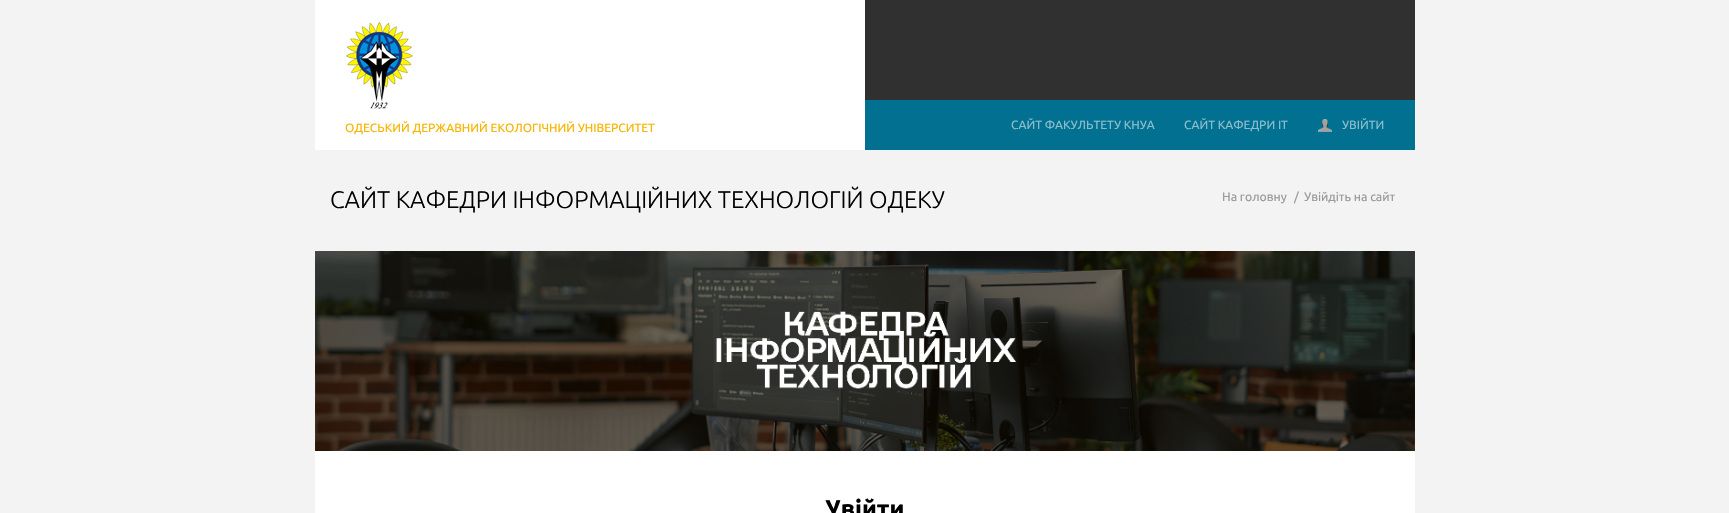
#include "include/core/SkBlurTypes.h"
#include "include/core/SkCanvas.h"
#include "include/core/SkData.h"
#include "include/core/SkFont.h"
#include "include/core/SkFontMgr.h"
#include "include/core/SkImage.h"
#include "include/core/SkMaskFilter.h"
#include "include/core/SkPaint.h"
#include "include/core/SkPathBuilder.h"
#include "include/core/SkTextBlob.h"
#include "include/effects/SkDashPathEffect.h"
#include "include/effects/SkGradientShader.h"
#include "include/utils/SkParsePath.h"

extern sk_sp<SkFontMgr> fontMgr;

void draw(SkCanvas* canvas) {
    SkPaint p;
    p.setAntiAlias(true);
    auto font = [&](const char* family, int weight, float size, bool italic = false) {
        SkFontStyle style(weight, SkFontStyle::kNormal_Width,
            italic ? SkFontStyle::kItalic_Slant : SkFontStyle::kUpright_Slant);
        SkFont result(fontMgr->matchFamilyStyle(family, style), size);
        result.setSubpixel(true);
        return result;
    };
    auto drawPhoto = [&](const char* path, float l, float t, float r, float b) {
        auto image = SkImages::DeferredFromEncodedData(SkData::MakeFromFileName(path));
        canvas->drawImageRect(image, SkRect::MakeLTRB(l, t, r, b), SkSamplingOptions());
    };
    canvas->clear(0xFFF3F3F3);
    p.setColor(0xFFFFFFFF);
    canvas->drawRect(SkRect::MakeLTRB(315, 0, 865, 150), p);
    drawPhoto("media/1.png", 346, 22, 413, 109);
    auto font1 = font("Ubuntu", 400, 12);
    p.setColor(0xFFF9B401);
    canvas->drawString("ОДЕСЬКИЙ ДЕРЖАВНИЙ ЕКОЛОГІЧНИЙ УНІВЕРСИТЕТ", 345, 132, font1, p);
    p.setColor(0xFF303030);
    canvas->drawRect(SkRect::MakeLTRB(865, 0, 1415, 100), p);
    p.setColor(0xFF027191);
    canvas->drawRect(SkRect::MakeLTRB(865, 100, 1415, 150), p);
    p.setColor(0xFF8BBECC);
    canvas->drawString("САЙТ ФАКУЛЬТЕТУ КНУА", 1011, 129, font1, p);
    canvas->drawString("САЙТ КАФЕДРИ ІТ", 1184, 129, font1, p);
    drawPhoto("media/2.png", 1319, 120, 1331, 132);
    drawPhoto("media/3.png", 1318, 119, 1332, 132);
    canvas->drawString("УВІЙТИ", 1342, 129, font1, p);
    auto font2 = font("Ubuntu", 300, 24);
    p.setColor(0xFF000000);
    canvas->drawString("САЙТ КАФЕДРИ ІНФОРМАЦІЙНИХ ТЕХНОЛОГІЙ ОДЕКУ", 330, 208, font2, p);
    auto font3 = font("Ubuntu", 400, 12.25f);
    p.setColor(0xFF999999);
    {
        const struct { const char* s; float x, y; } items[] = {
            {"На головну", 1222, 201},
            {"/", 1294, 201},
            {"Увійдіть на сайт", 1304, 201},
        };
        for (auto [s, x, y] : items) {
            canvas->drawString(s, x, y, font3, p);
        }
    }
    drawPhoto("media/4.png", 315, 251, 1415, 451);
    p.setColor(0xFFFFFFFF);
    canvas->drawRect(SkRect::MakeLTRB(315, 451, 1415, 513), p);
    auto font4 = font("Ubuntu", 700, 24);
    p.setColor(0xFF000000);
    canvas->drawString("Увійти", 825, 517, font4, p);
}
